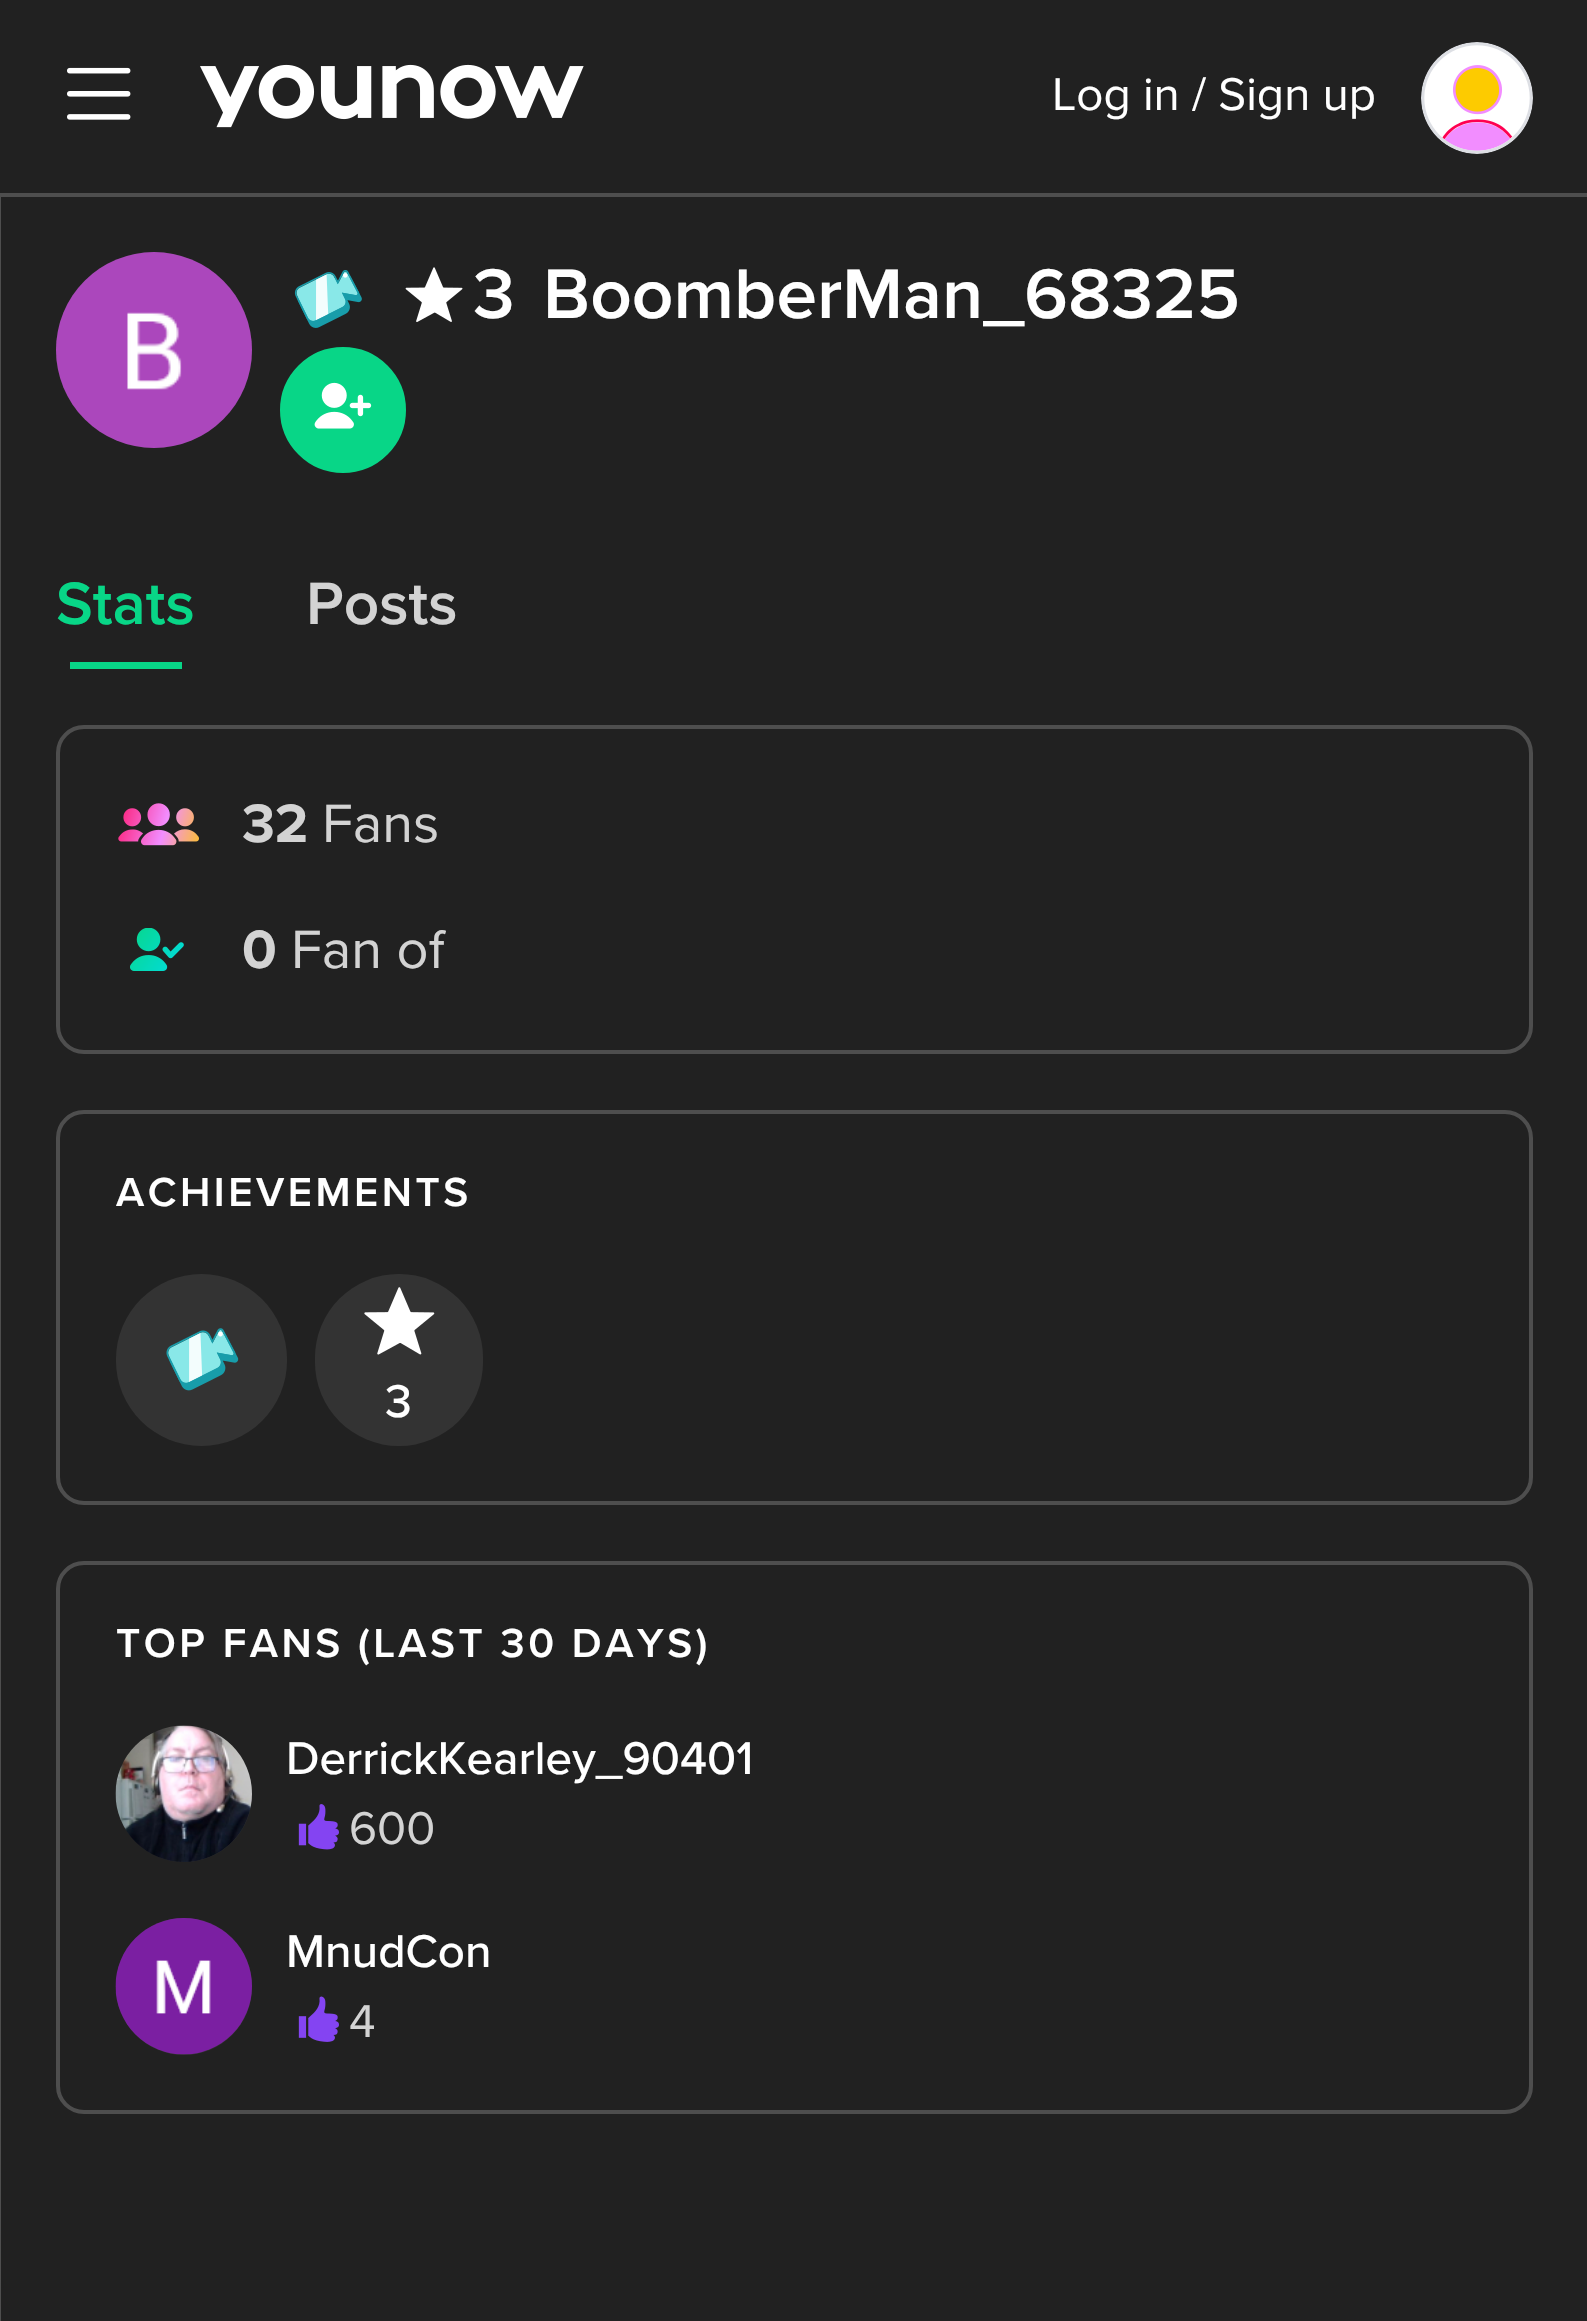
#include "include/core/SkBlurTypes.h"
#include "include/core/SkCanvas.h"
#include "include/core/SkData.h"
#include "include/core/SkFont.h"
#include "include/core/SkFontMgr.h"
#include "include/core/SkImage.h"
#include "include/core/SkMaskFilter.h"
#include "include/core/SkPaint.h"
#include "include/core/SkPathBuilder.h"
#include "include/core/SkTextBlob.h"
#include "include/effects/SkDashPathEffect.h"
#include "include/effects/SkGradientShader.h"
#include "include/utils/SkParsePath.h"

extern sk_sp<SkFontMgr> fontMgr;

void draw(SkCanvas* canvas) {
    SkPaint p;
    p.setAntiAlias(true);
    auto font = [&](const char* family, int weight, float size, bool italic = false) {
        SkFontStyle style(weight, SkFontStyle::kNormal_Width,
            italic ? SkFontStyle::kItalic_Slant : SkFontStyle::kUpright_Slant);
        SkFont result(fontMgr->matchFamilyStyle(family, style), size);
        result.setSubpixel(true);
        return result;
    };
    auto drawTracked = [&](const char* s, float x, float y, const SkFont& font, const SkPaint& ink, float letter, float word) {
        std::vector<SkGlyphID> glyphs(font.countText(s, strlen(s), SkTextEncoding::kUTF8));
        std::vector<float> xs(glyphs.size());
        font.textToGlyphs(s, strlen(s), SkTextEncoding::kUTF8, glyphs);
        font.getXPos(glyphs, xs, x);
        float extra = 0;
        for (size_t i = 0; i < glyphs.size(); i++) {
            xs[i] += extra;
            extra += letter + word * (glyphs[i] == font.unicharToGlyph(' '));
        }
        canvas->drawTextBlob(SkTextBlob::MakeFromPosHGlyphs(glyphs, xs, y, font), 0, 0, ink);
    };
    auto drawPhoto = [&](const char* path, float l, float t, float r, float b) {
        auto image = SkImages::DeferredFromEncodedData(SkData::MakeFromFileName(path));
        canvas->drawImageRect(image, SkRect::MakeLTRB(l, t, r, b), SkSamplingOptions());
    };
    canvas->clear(0xFF212121);
    p.setColor(0xFF4E4E4E);
    canvas->drawRect(SkRect::MakeLTRB(0, 193, 1587, 197), p);
    drawPhoto("media/1.png", 67, 67, 131, 120);
    drawPhoto("media/2.png", 200, 64, 584, 128);
    auto font1 = font("Proxima Nova", 400, 47.5f);
    p.setColor(0xFFFFFFFF);
    canvas->drawString("Log in / Sign up", 1052, 110, font1, p);
    p.setColor(0xFF333333);
    canvas->drawCircle(1477, 98, 56, p);
    drawPhoto("media/3.png", 1421, 42, 1533, 154);
    p.setColor(0xFF4E4E4E);
    canvas->drawRect(SkRect::MakeLTRB(0, 196, 1, 2321), p);
    p.setColor(0xFF333333);
    canvas->drawCircle(154, 350, 98, p);
    drawPhoto("media/4.png", 56, 252, 252, 448);
    drawPhoto("media/5.png", 294, 270, 362, 328);
    drawPhoto("media/6.png", 405, 267, 463, 322);
    auto font2 = font("Proxima Nova", 600, 72.75f);
    p.setColor(0xFFFFFFFF);
    canvas->drawString("3", 473, 318, font2, p);
    canvas->drawString("BoomberMan_68325", 543, 318, font2, p);
    p.setColor(0xFF08D687);
    canvas->drawCircle(343, 410, 61, p);
    p.setStyle(SkPaint::kStroke_Style);
    p.setStrokeWidth(4);
    canvas->drawCircle(343, 410, 61, p);
    drawPhoto("media/7.png", 314, 382, 372, 429);
    auto font3 = font("Proxima Nova", 600, 62);
    p.setStyle(SkPaint::kFill_Style);
    canvas->drawString("Stats", 56, 624, font3, p);
    canvas->drawRect(SkRect::MakeLTRB(70, 662, 182, 669), p);
    p.setColor(0xFFD3D3D3);
    canvas->drawString("Posts", 306, 624, font3, p);
    p.setStyle(SkPaint::kStroke_Style);
    p.setColor(0xFF4E4E4E);
    canvas->drawRoundRect(SkRect::MakeLTRB(58, 727, 1531, 1052), 26, 26, p);
    drawPhoto("media/8.png", 118, 803, 199, 846);
    auto font4 = font("Proxima Nova", 700, 56);
    p.setStyle(SkPaint::kFill_Style);
    p.setColor(0xFFD3D3D3);
    canvas->drawString("32", 242, 842, font4, p);
    auto font5 = font("Proxima Nova", 400, 56);
    canvas->drawString("Fans", 322, 842, font5, p);
    drawPhoto("media/9.png", 130, 928, 184, 971);
    canvas->drawString("0", 242, 968, font4, p);
    canvas->drawString("Fan of", 291, 968, font5, p);
    p.setStyle(SkPaint::kStroke_Style);
    p.setColor(0xFF4E4E4E);
    canvas->drawRoundRect(SkRect::MakeLTRB(58, 1112, 1531, 1503), 26, 26, p);
    auto font6 = font("Proxima Nova", 600, 42);
    p.setStyle(SkPaint::kFill_Style);
    p.setColor(0xFFFFFFFF);
    drawTracked("ACHIEVEMENTS", 116, 1206, font6, p, 3.5f, 0);
    p.setColor(0xFF333333);
    canvas->drawRoundRect(SkRect::MakeLTRB(116, 1274, 287, 1446), 85.5f, 85.5f, p);
    drawPhoto("media/10.png", 166, 1328, 239, 1391);
    canvas->drawRoundRect(SkRect::MakeLTRB(315, 1274, 483, 1446), 84, 84, p);
    drawPhoto("media/11.png", 364, 1287, 435, 1355);
    auto font7 = font("Proxima Nova", 500, 47.5f);
    p.setColor(0xFFFFFFFF);
    canvas->drawString("3", 385, 1417, font7, p);
    p.setStyle(SkPaint::kStroke_Style);
    p.setColor(0xFF4E4E4E);
    canvas->drawRoundRect(SkRect::MakeLTRB(58, 1563, 1531, 2112), 26, 26, p);
    p.setStyle(SkPaint::kFill_Style);
    p.setColor(0xFFFFFFFF);
    drawTracked("TOP FANS (LAST 30 DAYS)", 116, 1657, font6, p, 3.5f, 0);
    p.setColor(0xFF333333);
    canvas->drawCircle(184, 1794, 68, p);
    drawPhoto("media/12.png", 115, 1725, 252, 1862);
    p.setColor(0xFFFFFFFF);
    canvas->drawString("DerrickKearley_90401", 286, 1774, font7, p);
    drawPhoto("media/13.png", 298, 1804, 339, 1850);
    p.setColor(0xFFD3D3D3);
    canvas->drawString("600", 349, 1844, font1, p);
    p.setColor(0xFF333333);
    canvas->drawRoundRect(SkRect::MakeLTRB(116, 1918, 252, 2055), 68, 68, p);
    drawPhoto("media/14.png", 115, 1918, 252, 2055);
    p.setColor(0xFFFFFFFF);
    canvas->drawString("MnudCon", 286, 1967, font7, p);
    drawPhoto("media/15.png", 298, 1996, 339, 2042);
    p.setColor(0xFFD3D3D3);
    canvas->drawString("4", 349, 2037, font1, p);
}
